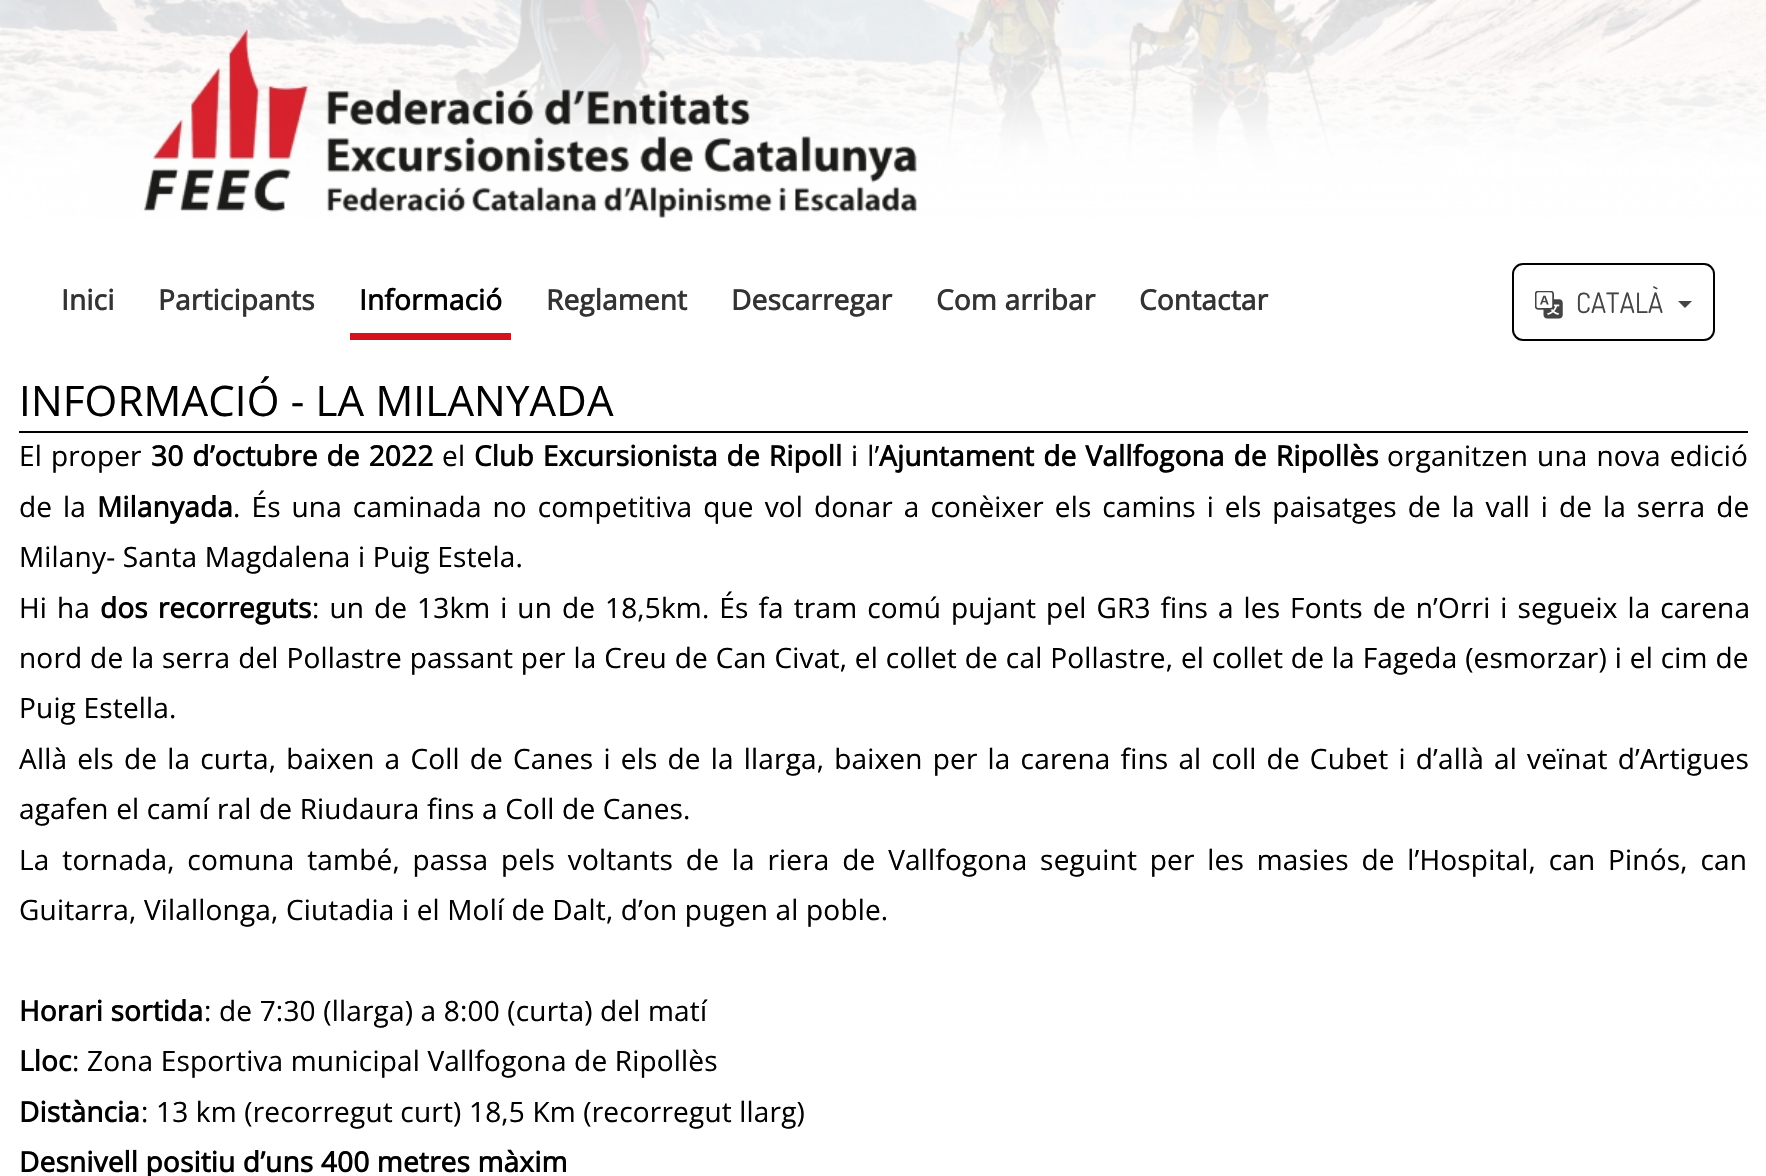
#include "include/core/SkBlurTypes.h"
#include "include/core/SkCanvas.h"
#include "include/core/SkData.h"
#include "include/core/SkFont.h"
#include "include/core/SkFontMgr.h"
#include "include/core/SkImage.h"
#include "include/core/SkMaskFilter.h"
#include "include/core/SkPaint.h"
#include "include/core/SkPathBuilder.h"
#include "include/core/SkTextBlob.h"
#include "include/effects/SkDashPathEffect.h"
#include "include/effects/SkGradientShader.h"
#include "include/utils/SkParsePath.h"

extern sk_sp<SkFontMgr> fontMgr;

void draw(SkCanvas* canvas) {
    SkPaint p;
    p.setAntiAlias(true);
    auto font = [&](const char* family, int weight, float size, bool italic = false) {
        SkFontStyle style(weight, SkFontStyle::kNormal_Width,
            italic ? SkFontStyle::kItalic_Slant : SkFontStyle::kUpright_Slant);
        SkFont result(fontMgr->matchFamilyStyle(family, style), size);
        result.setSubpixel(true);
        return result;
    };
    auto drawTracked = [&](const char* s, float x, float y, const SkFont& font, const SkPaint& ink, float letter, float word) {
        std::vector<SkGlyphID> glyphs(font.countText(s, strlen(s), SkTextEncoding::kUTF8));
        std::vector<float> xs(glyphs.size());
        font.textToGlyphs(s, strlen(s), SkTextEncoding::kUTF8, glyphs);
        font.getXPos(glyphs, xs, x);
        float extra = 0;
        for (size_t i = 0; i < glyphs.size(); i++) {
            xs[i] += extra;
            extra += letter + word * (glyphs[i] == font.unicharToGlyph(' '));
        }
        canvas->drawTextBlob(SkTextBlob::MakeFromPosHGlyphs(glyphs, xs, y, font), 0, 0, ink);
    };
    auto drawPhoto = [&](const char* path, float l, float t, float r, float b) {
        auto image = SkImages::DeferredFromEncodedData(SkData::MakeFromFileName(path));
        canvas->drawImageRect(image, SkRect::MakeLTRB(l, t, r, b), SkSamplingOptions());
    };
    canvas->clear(0xFFFFFFFF);
    drawPhoto("media/1.png", 0, 0, 1766, 218);
    auto font1 = font("Open Sans", 700, 28);
    p.setColor(0xFF333333);
    drawTracked("Inici", 61, 310, font1, p, 0.18f, 0);
    drawTracked("Participants", 158, 310, font1, p, 0.18f, 0);
    p.setColor(0xFFD5121E);
    canvas->drawRect(SkRect::MakeLTRB(350, 333, 511, 340), p);
    p.setColor(0xFF000000);
    drawTracked("Informació", 359, 310, font1, p, 0.18f, 0);
    p.setColor(0xFF333333);
    {
        const struct { const char* s; float x, y; } items[] = {
            {"Reglament", 546, 310},
            {"Descarregar", 731, 310},
            {"Com arribar", 936, 310},
            {"Contactar", 1139, 310},
        };
        for (auto [s, x, y] : items) {
            drawTracked(s, x, y, font1, p, 0.18f, 0);
        }
    }
    p.setStyle(SkPaint::kStroke_Style);
    p.setStrokeWidth(2);
    p.setColor(0xFF000000);
    canvas->drawRoundRect(SkRect::MakeLTRB(1513, 264, 1714, 340), 10, 10, p);
    drawPhoto("media/2.png", 1535, 291, 1563, 319);
    auto font2 = font("Dosis", 400, 28);
    p.setStyle(SkPaint::kFill_Style);
    p.setColor(0xFF444444);
    drawTracked("CATALÀ", 1576, 313, font2, p, 0.18f, 0);
    canvas->drawPath(SkPathBuilder().moveTo(1678, 301).lineTo(1692, 301).lineTo(1685, 308).close().detach(), p);
    p.setColor(0xFF000000);
    canvas->drawRect(SkRect::MakeLTRB(19, 431, 1748, 433), p);
    auto font3 = font("Open Sans", 400, 42);
    drawTracked("INFORMACIÓ - LA MILANYADA", 19, 416, font3, p, 0.18f, 0);
    auto font4 = font("Open Sans", 400, 28);
    drawTracked("El proper", 19, 466, font4, p, 0.18f, 1.5f);
    drawTracked("30 d’octubre de 2022", 151, 466, font1, p, 0.18f, 1.5f);
    drawTracked("el", 442, 466, font4, p, 0.18f, 0);
    drawTracked("Club Excursionista de Ripoll", 474, 466, font1, p, 0.18f, 1.5f);
    drawTracked("i l’", 851, 466, font4, p, 0.18f, 1.5f);
    drawTracked("Ajuntament de Vallfogona de Ripollès", 879, 466, font1, p, 0.18f, 1.5f);
    drawTracked("organitzen una nova edició", 1387, 466, font4, p, 0.18f, 1.5f);
    drawTracked("de la", 19, 517, font4, p, 0.18f, 3.4f);
    drawTracked("Milanyada", 97, 517, font1, p, 0.18f, 0);
    drawTracked(". És una caminada no competitiva que vol donar a conèixer els camins i els paisatges de la vall i de la serra de", 233, 517, font4, p, 0.18f, 3.4f);
    drawTracked("Milany- Santa Magdalena i Puig Estela.", 19, 567, font4, p, 0.18f, 0);
    drawTracked("Hi ha", 19, 618, font4, p, 0.18f, 2.4f);
    drawTracked("dos recorreguts", 100, 618, font1, p, 0.18f, 2.4f);
    drawTracked(": un de 13km i un de 18,5km. És fa tram comú pujant pel GR3 fins a les Fonts de n’Orri i segueix la carena", 312, 618, font4, p, 0.18f, 2.4f);
    drawTracked("nord de la serra del Pollastre passant per la Creu de Can Civat, el collet de cal Pollastre, el collet de la Fageda (esmorzar) i el cim de", 19, 668, font4, p, 0.18f, 0.35f);
    drawTracked("Puig Estella.", 19, 718, font4, p, 0.18f, 0);
    drawTracked("Allà els de la curta, baixen a Coll de Canes i els de la llarga, baixen per la carena fins al coll de Cubet i d’allà al veïnat d’Artigues", 19, 769, font4, p, 0.18f, 2.6f);
    drawTracked("agafen el camí ral de Riudaura fins a Coll de Canes.", 19, 819, font4, p, 0.18f, 0);
    drawTracked("La tornada, comuna també, passa pels voltants de la riera de Vallfogona seguint per les masies de l’Hospital, can Pinós, can", 19, 870, font4, p, 0.18f, 5.25f);
    drawTracked("Guitarra, Vilallonga, Ciutadia i el Molí de Dalt, d’on pugen al poble.", 19, 920, font4, p, 0.18f, 0);
    drawTracked("Horari sortida", 19, 1021, font1, p, 0.18f, 0);
    drawTracked(": de 7:30 (llarga) a 8:00 (curta) del matí", 204, 1021, font4, p, 0.18f, 0);
    drawTracked("Lloc", 19, 1071, font1, p, 0.18f, 0);
    drawTracked(": Zona Esportiva municipal Vallfogona de Ripollès", 72, 1071, font4, p, 0.18f, 0);
    drawTracked("Distància", 19, 1122, font1, p, 0.18f, 0);
    drawTracked(": 13 km (recorregut curt) 18,5 Km (recorregut llarg)", 141, 1122, font4, p, 0.18f, 0);
    drawTracked("Desnivell positiu d’uns 400 metres màxim", 19, 1172, font1, p, 0.18f, 0);
}
